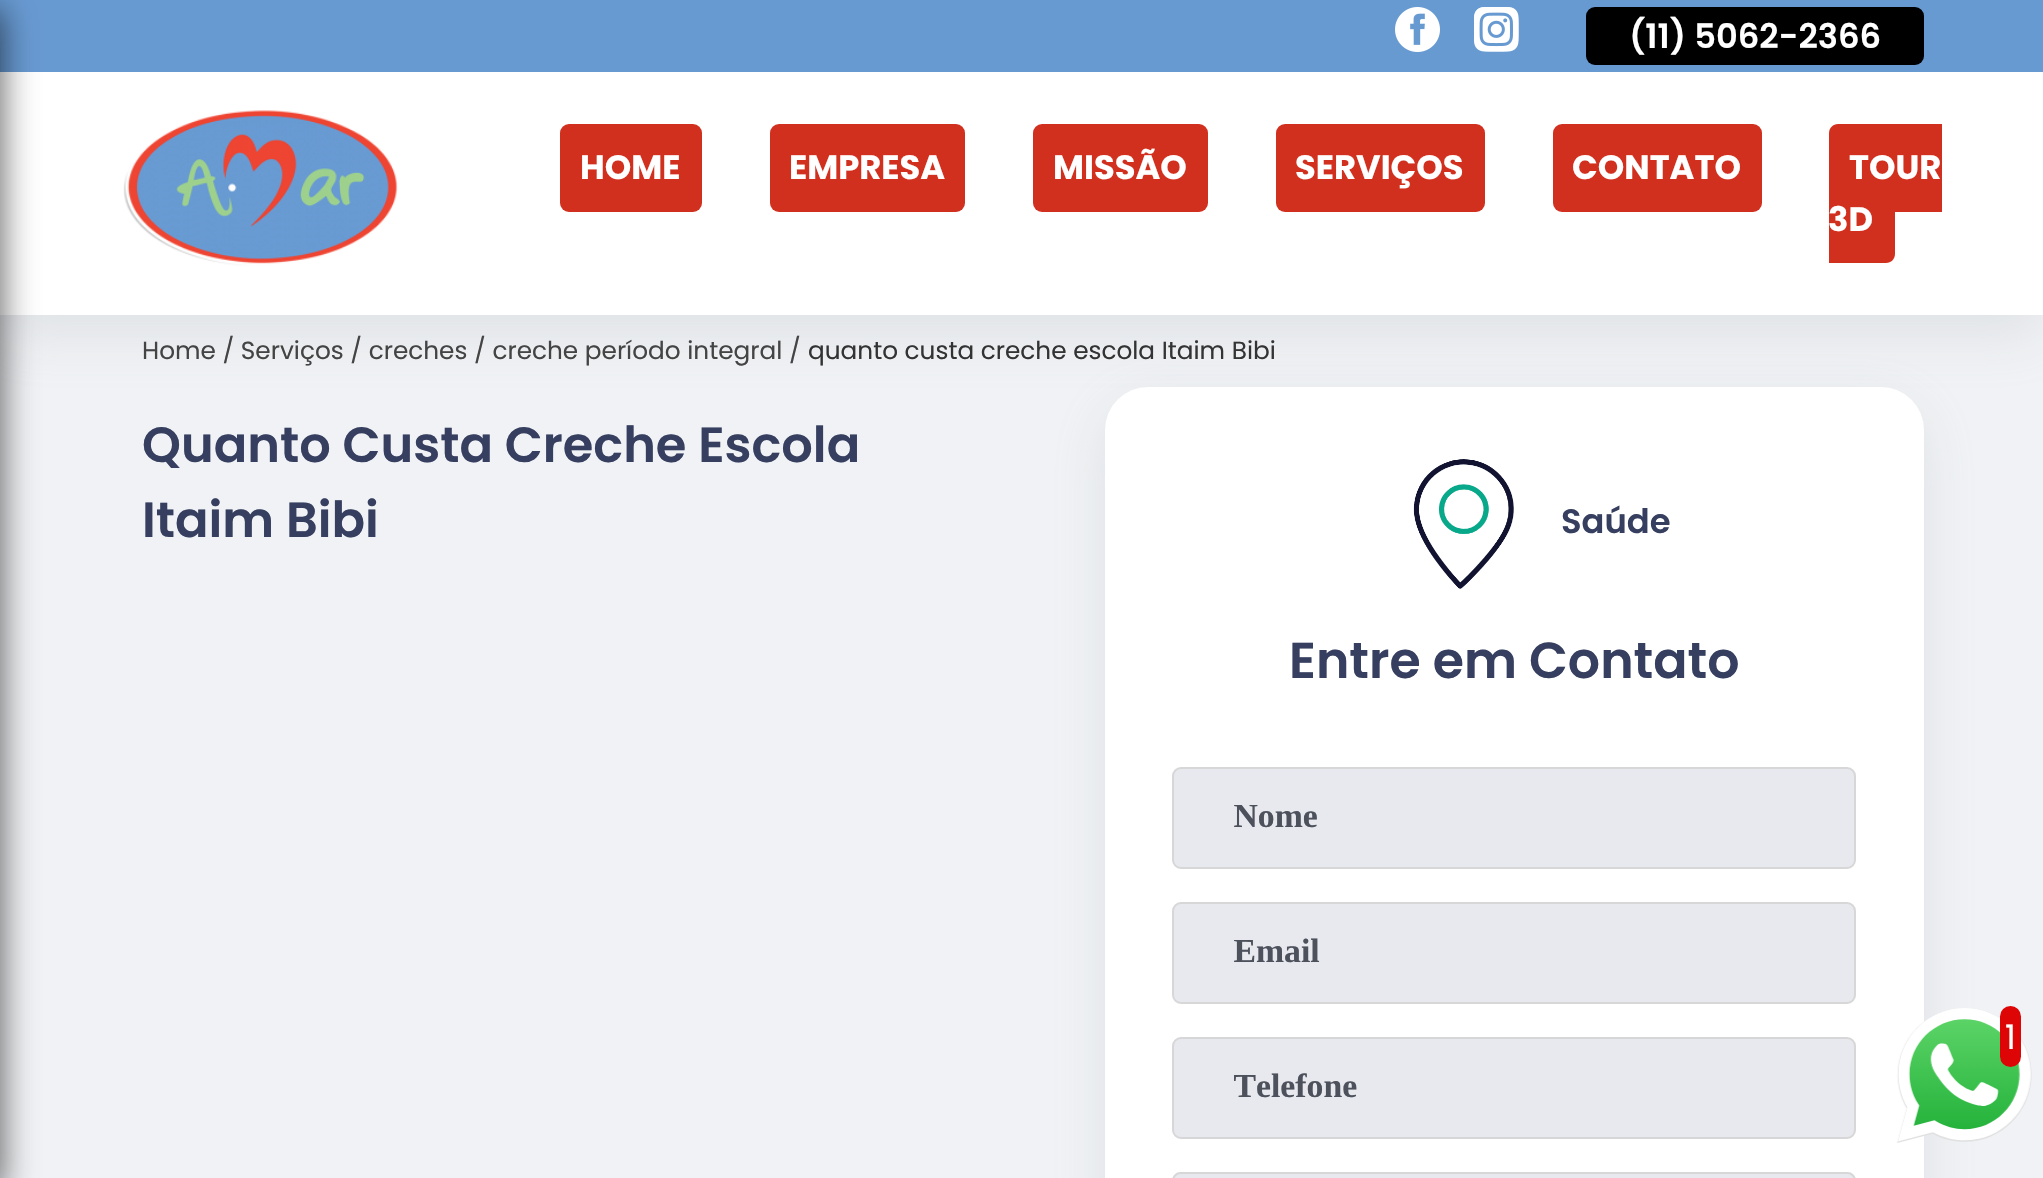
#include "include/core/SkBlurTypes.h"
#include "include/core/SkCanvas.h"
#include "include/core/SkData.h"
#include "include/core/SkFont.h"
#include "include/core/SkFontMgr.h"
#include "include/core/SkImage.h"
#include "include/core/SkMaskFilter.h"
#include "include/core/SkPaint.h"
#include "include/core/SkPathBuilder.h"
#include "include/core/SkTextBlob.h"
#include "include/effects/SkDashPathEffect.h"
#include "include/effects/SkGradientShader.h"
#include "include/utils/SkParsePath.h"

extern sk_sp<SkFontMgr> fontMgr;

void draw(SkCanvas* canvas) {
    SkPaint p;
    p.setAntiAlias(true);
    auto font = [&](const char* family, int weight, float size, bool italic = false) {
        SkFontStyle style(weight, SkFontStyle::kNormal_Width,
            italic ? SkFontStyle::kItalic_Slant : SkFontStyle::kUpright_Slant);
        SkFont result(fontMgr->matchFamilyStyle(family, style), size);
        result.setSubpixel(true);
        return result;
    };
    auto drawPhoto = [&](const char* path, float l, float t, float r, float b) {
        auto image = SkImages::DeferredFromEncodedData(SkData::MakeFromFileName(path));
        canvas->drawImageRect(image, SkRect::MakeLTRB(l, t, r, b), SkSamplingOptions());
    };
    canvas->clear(0xFFF0F2F5);
    p.setColor(0x33959DA5);
    p.setMaskFilter(SkMaskFilter::MakeBlur(kNormal_SkBlurStyle, 27));
    canvas->drawRect(SkRect::MakeLTRB(0, 18, 2043, 333), p);
    p.setMaskFilter(nullptr);
    p.setColor(0xFFFFFFFF);
    canvas->drawRect(SkRect::MakeLTRB(0, 72, 2043, 315), p);
    p.setColor(0xFF689AD2);
    canvas->drawRect(SkRect::MakeLTRB(0, 0, 2043, 72), p);
    p.setColor(0x99000000);
    p.setMaskFilter(SkMaskFilter::MakeBlur(kNormal_SkBlurStyle, 17));
    canvas->drawRect(SkRect::MakeLTRB(-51, 9, 2, 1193), p);
    p.setMaskFilter(nullptr);
    drawPhoto("media/1.png", 1395, 7, 1440, 52);
    drawPhoto("media/2.png", 1474, 7, 1519, 52);
    p.setColor(0xFF000000);
    canvas->drawRoundRect(SkRect::MakeLTRB(1586, 7, 1924, 65), 9, 9, p);
    auto font1 = font("Poppins", 600, 33.75f);
    p.setColor(0xFFFFFFFF);
    canvas->drawString("(11) 5062-2366", 1629, 48, font1, p);
    drawPhoto("media/3.png", 123, 110, 398, 266);
    p.setColor(0xFFD2301E);
    canvas->drawRoundRect(SkRect::MakeLTRB(560, 124, 702, 212), 9, 9, p);
    auto font2 = font("Poppins", 700, 33.75f);
    p.setColor(0xFFFFFFFF);
    canvas->drawString("HOME", 580, 179, font2, p);
    p.setColor(0xFFD2301E);
    canvas->drawRoundRect(SkRect::MakeLTRB(770, 124, 965, 212), 9, 9, p);
    p.setColor(0xFFFFFFFF);
    canvas->drawString("EMPRESA", 789, 179, font2, p);
    p.setColor(0xFFD2301E);
    canvas->drawRoundRect(SkRect::MakeLTRB(1033, 124, 1208, 212), 9, 9, p);
    p.setColor(0xFFFFFFFF);
    canvas->drawString("MISSÃO", 1053, 179, font2, p);
    p.setColor(0xFFD2301E);
    canvas->drawRoundRect(SkRect::MakeLTRB(1276, 124, 1485, 212), 9, 9, p);
    p.setColor(0xFFFFFFFF);
    canvas->drawString("SERVIÇOS", 1295, 179, font2, p);
    p.setColor(0xFFD2301E);
    canvas->drawRoundRect(SkRect::MakeLTRB(1553, 124, 1762, 212), 9, 9, p);
    p.setColor(0xFFFFFFFF);
    canvas->drawString("CONTATO", 1572, 179, font2, p);
    p.setColor(0xFFD2301E);
    canvas->drawPath(SkPathBuilder().moveTo(1838, 124).lineTo(1942, 124).lineTo(1942, 212).lineTo(1838, 212).cubicTo(1833, 212, 1829, 208, 1829, 203).lineTo(1829, 133).cubicTo(1829, 128, 1833, 124, 1838, 124).close().detach(), p);
    canvas->drawPath(SkPathBuilder().moveTo(1829, 176).lineTo(1886, 176).cubicTo(1891, 176, 1895, 180, 1895, 185).lineTo(1895, 254).cubicTo(1895, 259, 1891, 263, 1886, 263).lineTo(1829, 263).close().detach(), p);
    p.setColor(0xFFFFFFFF);
    canvas->drawString("TOUR", 1849, 179, font2, p);
    canvas->drawString("3D", 1828, 231, font2, p);
    auto font3 = font("Poppins", 400, 24.75f);
    p.setColor(0xFF444444);
    canvas->drawString("Home / Serviços / creches / creche período integral /", 142, 359, font3, p);
    p.setColor(0xFF333333);
    canvas->drawString("quanto custa creche escola Itaim Bibi", 808, 359, font3, p);
    auto font4 = font("Poppins", 600, 49.5f);
    p.setColor(0xFF363F5F);
    canvas->drawString("Quanto Custa Creche Escola", 142, 462, font4, p);
    canvas->drawString("Itaim Bibi", 142, 537, font4, p);
    p.setColor(0x33959DA5);
    p.setMaskFilter(SkMaskFilter::MakeBlur(kNormal_SkBlurStyle, 27));
    canvas->drawRoundRect(SkRect::MakeLTRB(1105, 405, 1924, 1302), 43, 43, p);
    p.setMaskFilter(nullptr);
    p.setColor(0xFFFFFFFF);
    canvas->drawRoundRect(SkRect::MakeLTRB(1105, 387, 1924, 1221), 43, 43, p);
    drawPhoto("media/4.png", 1413, 459, 1514, 589);
    p.setColor(0xFF363F5F);
    canvas->drawString("Saúde", 1561, 533, font1, p);
    auto font5 = font("Poppins", 600, 50.6f);
    canvas->drawString("Entre em Contato", 1289, 678, font5, p);
    p.setColor(0xFFE7E9EE);
    canvas->drawRoundRect(SkRect::MakeLTRB(1173, 768, 1855, 868), 8, 8, p);
    p.setStyle(SkPaint::kStroke_Style);
    p.setStrokeWidth(2);
    p.setColor(0xFFD7D7D7);
    canvas->drawRoundRect(SkRect::MakeLTRB(1173, 768, 1855, 868), 8, 8, p);
    auto font6 = font("Liberation Serif", 700, 33.75f);
    p.setStyle(SkPaint::kFill_Style);
    p.setColor(0xFF4D515C);
    canvas->drawString(" Nome", 1225, 827, font6, p);
    p.setColor(0xFFE7E9EE);
    canvas->drawRoundRect(SkRect::MakeLTRB(1173, 903, 1855, 1003), 8, 8, p);
    p.setStyle(SkPaint::kStroke_Style);
    p.setColor(0xFFD7D7D7);
    canvas->drawRoundRect(SkRect::MakeLTRB(1173, 903, 1855, 1003), 8, 8, p);
    p.setStyle(SkPaint::kFill_Style);
    p.setColor(0xFF4D515C);
    canvas->drawString(" Email", 1225, 962, font6, p);
    p.setColor(0xFFE7E9EE);
    canvas->drawRoundRect(SkRect::MakeLTRB(1173, 1038, 1855, 1138), 8, 8, p);
    p.setStyle(SkPaint::kStroke_Style);
    p.setColor(0xFFD7D7D7);
    canvas->drawRoundRect(SkRect::MakeLTRB(1173, 1038, 1855, 1138), 8, 8, p);
    p.setStyle(SkPaint::kFill_Style);
    p.setColor(0xFF4D515C);
    canvas->drawString(" Telefone", 1225, 1097, font6, p);
    p.setColor(0xFFE7E9EE);
    canvas->drawRoundRect(SkRect::MakeLTRB(1173, 1173, 1855, 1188), 8, 8, p);
    p.setStyle(SkPaint::kStroke_Style);
    p.setColor(0xFFD7D7D7);
    canvas->drawRoundRect(SkRect::MakeLTRB(1173, 1173, 1855, 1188), 8, 8, p);
    drawPhoto("media/5.png", 1896, 1008, 2032, 1143);
    p.setStyle(SkPaint::kFill_Style);
    p.setColor(0xFFDD0505);
    canvas->drawRoundRect(SkRect::MakeLTRB(2000, 1006, 2021, 1067), 10.5f, 10.5f, p);
    auto font7 = font("Poppins", 400, 33.75f);
    p.setColor(0xFFFFFFFF);
    canvas->drawString("1", 2005, 1049, font7, p);
}
